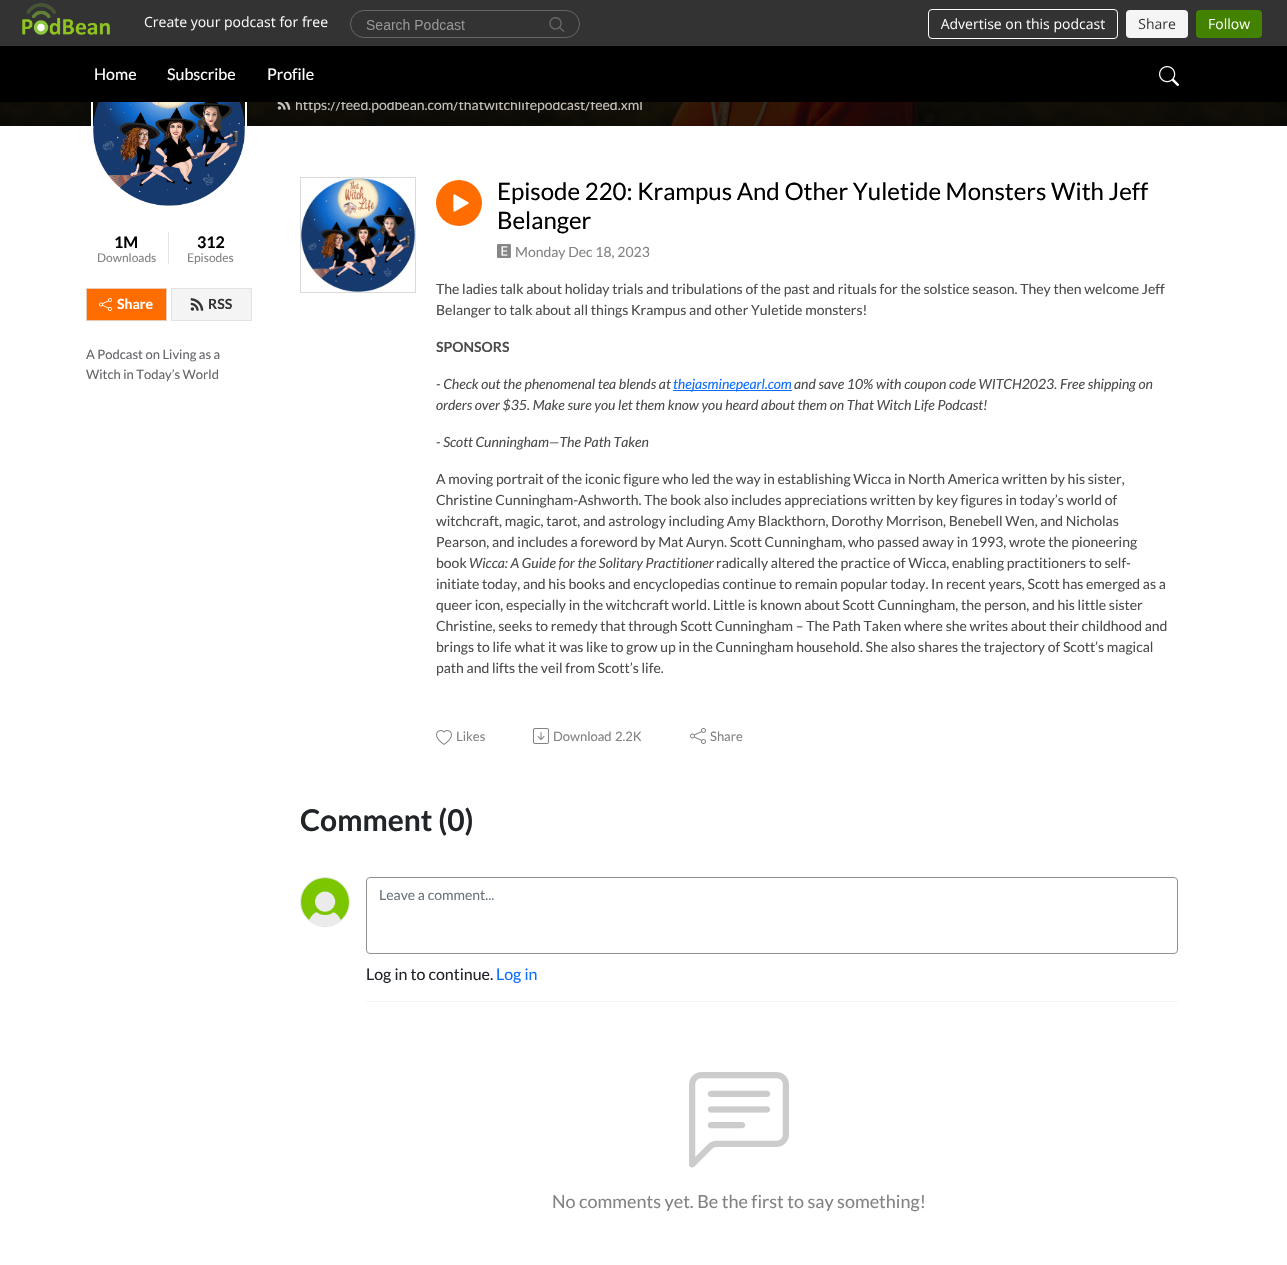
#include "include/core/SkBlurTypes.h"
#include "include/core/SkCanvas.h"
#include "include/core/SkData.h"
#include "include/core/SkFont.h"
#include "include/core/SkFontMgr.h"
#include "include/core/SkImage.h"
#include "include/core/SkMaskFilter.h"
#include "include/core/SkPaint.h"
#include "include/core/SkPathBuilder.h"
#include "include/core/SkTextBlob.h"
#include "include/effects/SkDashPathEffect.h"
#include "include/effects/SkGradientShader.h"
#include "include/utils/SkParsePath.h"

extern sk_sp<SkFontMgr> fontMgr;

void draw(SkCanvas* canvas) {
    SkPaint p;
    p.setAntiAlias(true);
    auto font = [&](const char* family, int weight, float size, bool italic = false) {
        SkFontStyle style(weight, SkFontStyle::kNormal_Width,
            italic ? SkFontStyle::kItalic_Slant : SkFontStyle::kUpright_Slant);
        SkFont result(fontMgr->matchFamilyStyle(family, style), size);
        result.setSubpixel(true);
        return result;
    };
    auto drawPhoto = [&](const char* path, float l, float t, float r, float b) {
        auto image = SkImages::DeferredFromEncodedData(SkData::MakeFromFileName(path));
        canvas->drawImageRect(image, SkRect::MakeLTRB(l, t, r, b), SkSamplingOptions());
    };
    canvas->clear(0xFFFFFFFF);
    p.setColor(0xFF333333);
    canvas->drawRect(SkRect::MakeLTRB(0, 0, 1287, 46), p);
    drawPhoto("media/1.png", 22, 3, 1262, 39);
    drawPhoto("media/4.png", 0, 102, 1287, 126);
    p.setColor(0xCC000000);
    canvas->drawRect(SkRect::MakeLTRB(0, 102, 1287, 126), p);
    auto font1 = font("Lato", 400, 14);
    p.setColor(0xFFC3C2C1);
    canvas->drawString("https://feed.podbean.com/thatwitchlifepodcast/feed.xml", 295, 110, font1, p);
    p.setStyle(SkPaint::kStroke_Style);
    p.setStrokeWidth(2);
    p.setColor(0xFFFFFFFF);
    canvas->drawRect(SkRect::MakeLTRB(92, 53, 246, 207), p);
    p.setStyle(SkPaint::kFill_Style);
    p.setColor(0xFF000000);
    canvas->drawRect(SkRect::MakeLTRB(0, 46, 1287, 102), p);
    auto font2 = font("Lato", 400, 16);
    p.setColor(0xFFFFFFFF);
    {
        const struct { const char* s; float x, y; } items[] = {
            {"Home", 94, 80},
            {"Subscribe", 167, 80},
            {"Profile", 267, 80},
        };
        for (auto [s, x, y] : items) {
            canvas->drawString(s, x, y, font2, p);
        }
    }
    drawPhoto("media/2.png", 1159, 66, 1179, 86);
    drawPhoto("media/3.png", 277, 102, 291, 110);
    drawPhoto("media/5.png", 93, 102, 245, 206);
    auto font3 = font("Lato", 700, 16);
    p.setColor(0xFF000000);
    canvas->drawString("1M", 114, 248, font3, p);
    auto font4 = font("Lato", 400, 12);
    p.setColor(0xFF838383);
    canvas->drawString("Downloads", 97, 262, font4, p);
    p.setColor(0xFFE6E6E6);
    canvas->drawRect(SkRect::MakeLTRB(168, 232, 169, 264), p);
    p.setColor(0xFF000000);
    canvas->drawString("312", 197, 248, font3, p);
    p.setColor(0xFF838383);
    canvas->drawString("Episodes", 187, 262, font4, p);
    p.setColor(0xFFFF6D00);
    canvas->drawRect(SkRect::MakeLTRB(86.5f, 288.5f, 166.5f, 320.5f), p);
    p.setStyle(SkPaint::kStroke_Style);
    p.setStrokeWidth(1);
    p.setColor(0xFFE8CBB5);
    canvas->drawRect(SkRect::MakeLTRB(86.5f, 288.5f, 166.5f, 320.5f), p);
    drawPhoto("media/6.png", 99, 298, 112, 311);
    auto font5 = font("Lato", 700, 14);
    p.setStyle(SkPaint::kFill_Style);
    p.setColor(0xFFFFFFFF);
    canvas->drawString("Share", 117, 309, font5, p);
    p.setColor(0xFFF4F4F4);
    canvas->drawRect(SkRect::MakeLTRB(171.5f, 288.5f, 251.5f, 320.5f), p);
    p.setStyle(SkPaint::kStroke_Style);
    p.setColor(0xFFE2E2E2);
    canvas->drawRect(SkRect::MakeLTRB(171.5f, 288.5f, 251.5f, 320.5f), p);
    drawPhoto("media/7.png", 190, 298, 204, 311);
    p.setStyle(SkPaint::kFill_Style);
    p.setColor(0xFF333333);
    canvas->drawString("RSS", 208, 309, font5, p);
    auto font6 = font("Lato", 400, 13);
    p.setColor(0xFF646669);
    canvas->drawString("A Podcast on Living as a", 86, 359, font6, p);
    canvas->drawString("Witch in Today’s World", 86, 379, font6, p);
    p.setStyle(SkPaint::kStroke_Style);
    p.setColor(0xFFDADADA);
    canvas->drawRect(SkRect::MakeLTRB(300.5f, 177.5f, 415.5f, 292.5f), p);
    drawPhoto("media/8.png", 301, 178, 415, 292);
    p.setStyle(SkPaint::kFill_Style);
    p.setColor(0xFFFF6D00);
    canvas->drawCircle(459, 203, 23, p);
    drawPhoto("media/9.png", 453, 194, 469, 212);
    auto font7 = font("Lato", 400, 24);
    p.setColor(0xFF000000);
    canvas->drawString("Episode 220: Krampus And Other Yuletide Monsters With Jeff", 497, 200, font7, p);
    canvas->drawString("Belanger", 497, 229, font7, p);
    drawPhoto("media/10.png", 497, 244, 511, 258);
    p.setColor(0xFF838383);
    canvas->drawString("Monday Dec 18, 2023", 515, 257, font1, p);
    p.setColor(0xFF4C4C4C);
    canvas->drawString("The ladies talk about holiday trials and tribulations of the past and rituals for the solstice season. They then welcome Jeff", 436, 294, font1, p);
    canvas->drawString("Belanger to talk about all things Krampus and other Yuletide monsters!", 436, 315, font1, p);
    canvas->drawString("SPONSORS", 436, 352, font5, p);
    auto font8 = font("Lato", 400, 14, true);
    canvas->drawString("- Check out the phenomenal tea blends at", 436, 389, font8, p);
    p.setColor(0xFF0D6EFD);
    canvas->drawRect(SkRect::MakeLTRB(673, 390, 792, 391), p);
    canvas->drawString("thejasminepearl.com", 673, 389, font8, p);
    p.setColor(0xFF4C4C4C);
    {
        const struct { const char* s; float x, y; } items[] = {
            {"and save 10% with coupon code WITCH2023. Free shipping on", 794, 389},
            {"orders over $35. Make sure you let them know you heard about them on That Witch Life Podcast!", 436, 410},
            {"- Scott Cunningham—The Path Taken", 436, 447},
        };
        for (auto [s, x, y] : items) {
            canvas->drawString(s, x, y, font8, p);
        }
    }
    {
        const struct { const char* s; float x, y; } items[] = {
            {"A moving portrait of the iconic figure who led the way in establishing Wicca in North America written by his sister,", 436, 484},
            {"Christine Cunningham-Ashworth. The book also includes appreciations written by key figures in today’s world of", 436, 505},
            {"witchcraft, magic, tarot, and astrology including Amy Blackthorn, Dorothy Morrison, Benebell Wen, and Nicholas", 436, 526},
            {"Pearson, and includes a foreword by Mat Auryn. Scott Cunningham, who passed away in 1993, wrote the pioneering", 436, 547},
            {"book", 436, 568},
        };
        for (auto [s, x, y] : items) {
            canvas->drawString(s, x, y, font1, p);
        }
    }
    canvas->drawString("Wicca: A Guide for the Solitary Practitioner", 469, 568, font8, p);
    {
        const struct { const char* s; float x, y; } items[] = {
            {"radically altered the practice of Wicca, enabling practitioners to self-", 716, 568},
            {"initiate today, and his books and encyclopedias continue to remain popular today. In recent years, Scott has emerged as a", 436, 589},
            {"queer icon, especially in the witchcraft world. Little is known about Scott Cunningham, the person, and his little sister", 436, 610},
            {"Christine, seeks to remedy that through Scott Cunningham – The Path Taken where she writes about their childhood and", 436, 631},
            {"brings to life what it was like to grow up in the Cunningham household. She also shares the trajectory of Scott’s magical", 436, 652},
            {"path and lifts the veil from Scott’s life.", 436, 673},
        };
        for (auto [s, x, y] : items) {
            canvas->drawString(s, x, y, font1, p);
        }
    }
    drawPhoto("media/11.png", 436, 730, 452, 745);
    p.setColor(0xFF838383);
    canvas->drawString("Likes", 456, 741, font6, p);
    drawPhoto("media/12.png", 533, 728, 549, 744);
    canvas->drawString("Download", 553, 741, font6, p);
    canvas->drawString("2.2K", 615, 741, font6, p);
    drawPhoto("media/13.png", 690, 728, 706, 744);
    canvas->drawString("Share", 710, 741, font6, p);
    auto font9 = font("Lato", 700, 30);
    p.setColor(0xFF212529);
    canvas->drawString("Comment (0)", 300, 831, font9, p);
    p.setStyle(SkPaint::kStroke_Style);
    p.setColor(0xFFE3E3E3);
    canvas->drawCircle(325, 902, 24.5f, p);
    drawPhoto("media/14.png", 301, 878, 349, 926);
    p.setStyle(SkPaint::kFill_Style);
    p.setColor(0xFFF5F5F5);
    canvas->drawRect(SkRect::MakeLTRB(366, 1001, 1178, 1002), p);
    p.setStyle(SkPaint::kStroke_Style);
    p.setColor(0xFF909090);
    canvas->drawRoundRect(SkRect::MakeLTRB(366.5f, 877.5f, 1177.5f, 953.5f), 3.5f, 3.5f, p);
    p.setStyle(SkPaint::kFill_Style);
    p.setColor(0xFF6C757D);
    canvas->drawString("Leave a comment...", 379, 900, font1, p);
    p.setColor(0xFF212529);
    canvas->drawString("Log in to continue.", 366, 980, font2, p);
    p.setColor(0xFF0D6EFD);
    canvas->drawString("Log in", 496, 980, font2, p);
    drawPhoto("media/15.png", 689, 1072, 789, 1168);
    auto font10 = font("Lato", 400, 18);
    p.setColor(0xFF838383);
    canvas->drawString("No comments yet. Be the first to say something!", 552, 1208, font10, p);
}
